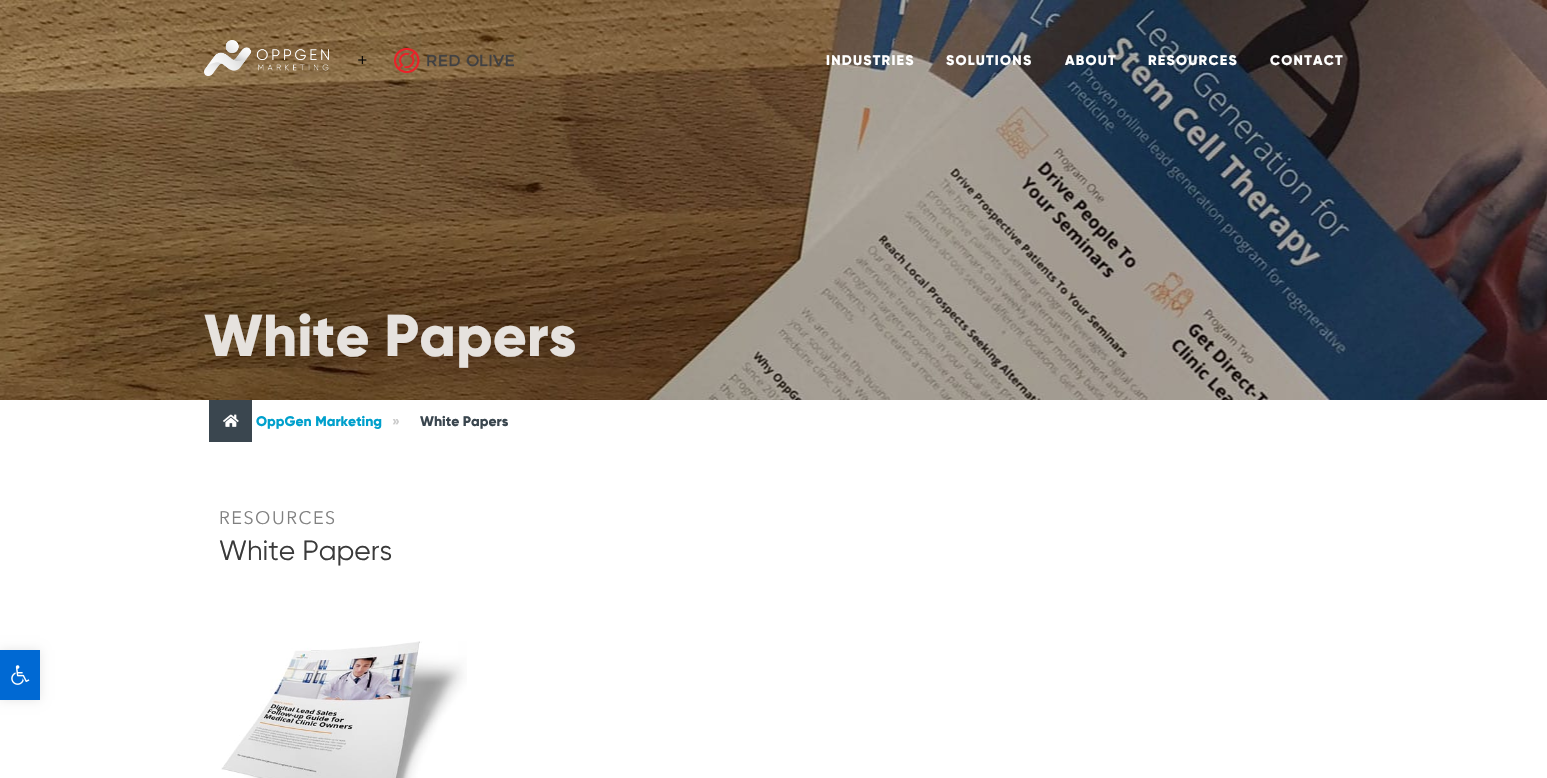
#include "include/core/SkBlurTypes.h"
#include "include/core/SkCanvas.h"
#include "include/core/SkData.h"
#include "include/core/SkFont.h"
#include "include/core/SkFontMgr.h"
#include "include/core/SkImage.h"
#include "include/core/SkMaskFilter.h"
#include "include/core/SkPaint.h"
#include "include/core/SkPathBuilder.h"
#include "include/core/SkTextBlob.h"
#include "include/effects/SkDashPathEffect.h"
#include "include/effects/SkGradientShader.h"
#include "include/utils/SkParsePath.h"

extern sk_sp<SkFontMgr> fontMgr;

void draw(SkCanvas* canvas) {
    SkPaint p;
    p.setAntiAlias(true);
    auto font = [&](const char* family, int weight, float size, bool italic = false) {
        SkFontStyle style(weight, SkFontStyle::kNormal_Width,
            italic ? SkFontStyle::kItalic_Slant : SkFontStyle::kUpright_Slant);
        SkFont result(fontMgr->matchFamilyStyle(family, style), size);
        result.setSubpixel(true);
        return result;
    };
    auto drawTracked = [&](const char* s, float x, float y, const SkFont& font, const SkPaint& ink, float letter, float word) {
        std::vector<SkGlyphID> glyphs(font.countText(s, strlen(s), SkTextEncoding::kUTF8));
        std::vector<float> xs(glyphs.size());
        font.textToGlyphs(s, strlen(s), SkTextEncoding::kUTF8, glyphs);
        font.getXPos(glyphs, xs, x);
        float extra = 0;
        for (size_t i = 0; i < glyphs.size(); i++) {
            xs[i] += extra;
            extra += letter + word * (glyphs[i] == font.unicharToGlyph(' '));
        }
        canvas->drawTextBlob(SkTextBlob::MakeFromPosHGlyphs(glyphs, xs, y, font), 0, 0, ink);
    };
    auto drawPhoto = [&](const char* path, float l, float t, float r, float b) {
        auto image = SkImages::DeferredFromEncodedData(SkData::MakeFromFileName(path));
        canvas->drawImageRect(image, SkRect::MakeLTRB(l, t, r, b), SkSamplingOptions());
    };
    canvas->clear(0xFFFFFFFF);
    drawPhoto("media/3.png", 0, 0, 1547, 400);
    drawPhoto("media/1.png", 204, 40, 329, 76);
    auto font1 = font("Gilroy", 300, 20);
    p.setColor(0xFF000000);
    drawTracked("+", 357, 67, font1, p, 1.25f, 0);
    drawPhoto("media/2.png", 394, 48, 514, 73);
    auto font2 = font("Gilroy", 800, 14);
    p.setColor(0xFFFFFFFF);
    {
        const struct { const char* s; float x, y; } items[] = {
            {"INDUSTRIES", 826, 65},
            {"SOLUTIONS", 946, 65},
            {"ABOUT", 1065, 65},
            {"RESOURCES", 1148, 65},
            {"CONTACT", 1270, 65},
        };
        for (auto [s, x, y] : items) {
            drawTracked(s, x, y, font2, p, 1.25f, 0);
        }
    }
    auto font3 = font("Gilroy", 800, 59);
    p.setColor(0xFFE6E2DE);
    canvas->drawString("White Papers", 204, 356, font3, p);
    p.setColor(0xFF3A464F);
    canvas->drawRect(SkRect::MakeLTRB(209, 400, 252, 442), p);
    drawPhoto("media/4.png", 223, 414, 239, 427);
    p.setColor(0xFF00A0CC);
    canvas->drawString("OppGen Marketing", 256, 426, font2, p);
    p.setColor(0xFFCCCCCC);
    canvas->drawString("»", 392, 426, font2, p);
    p.setColor(0xFF3A464F);
    canvas->drawString("White Papers", 420, 426, font2, p);
    auto font4 = font("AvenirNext", 400, 18);
    p.setColor(0xFF808080);
    drawTracked("RESOURCES", 219, 524, font4, p, 1.5f, 0);
    auto font5 = font("Gilroy", 400, 28);
    p.setColor(0xFF3A3A3A);
    canvas->drawString("White Papers", 219, 560, font5, p);
    drawPhoto("media/5.png", 221, 641, 467, 778);
    p.setColor(0x1A000000);
    p.setMaskFilter(SkMaskFilter::MakeBlur(kNormal_SkBlurStyle, 5));
    canvas->drawRect(SkRect::MakeLTRB(0, 650, 40, 700), p);
    p.setMaskFilter(nullptr);
    p.setColor(0xFF0069D3);
    canvas->drawRect(SkRect::MakeLTRB(0, 650, 40, 700), p);
    drawPhoto("media/6.png", 11, 665, 30, 685);
}
